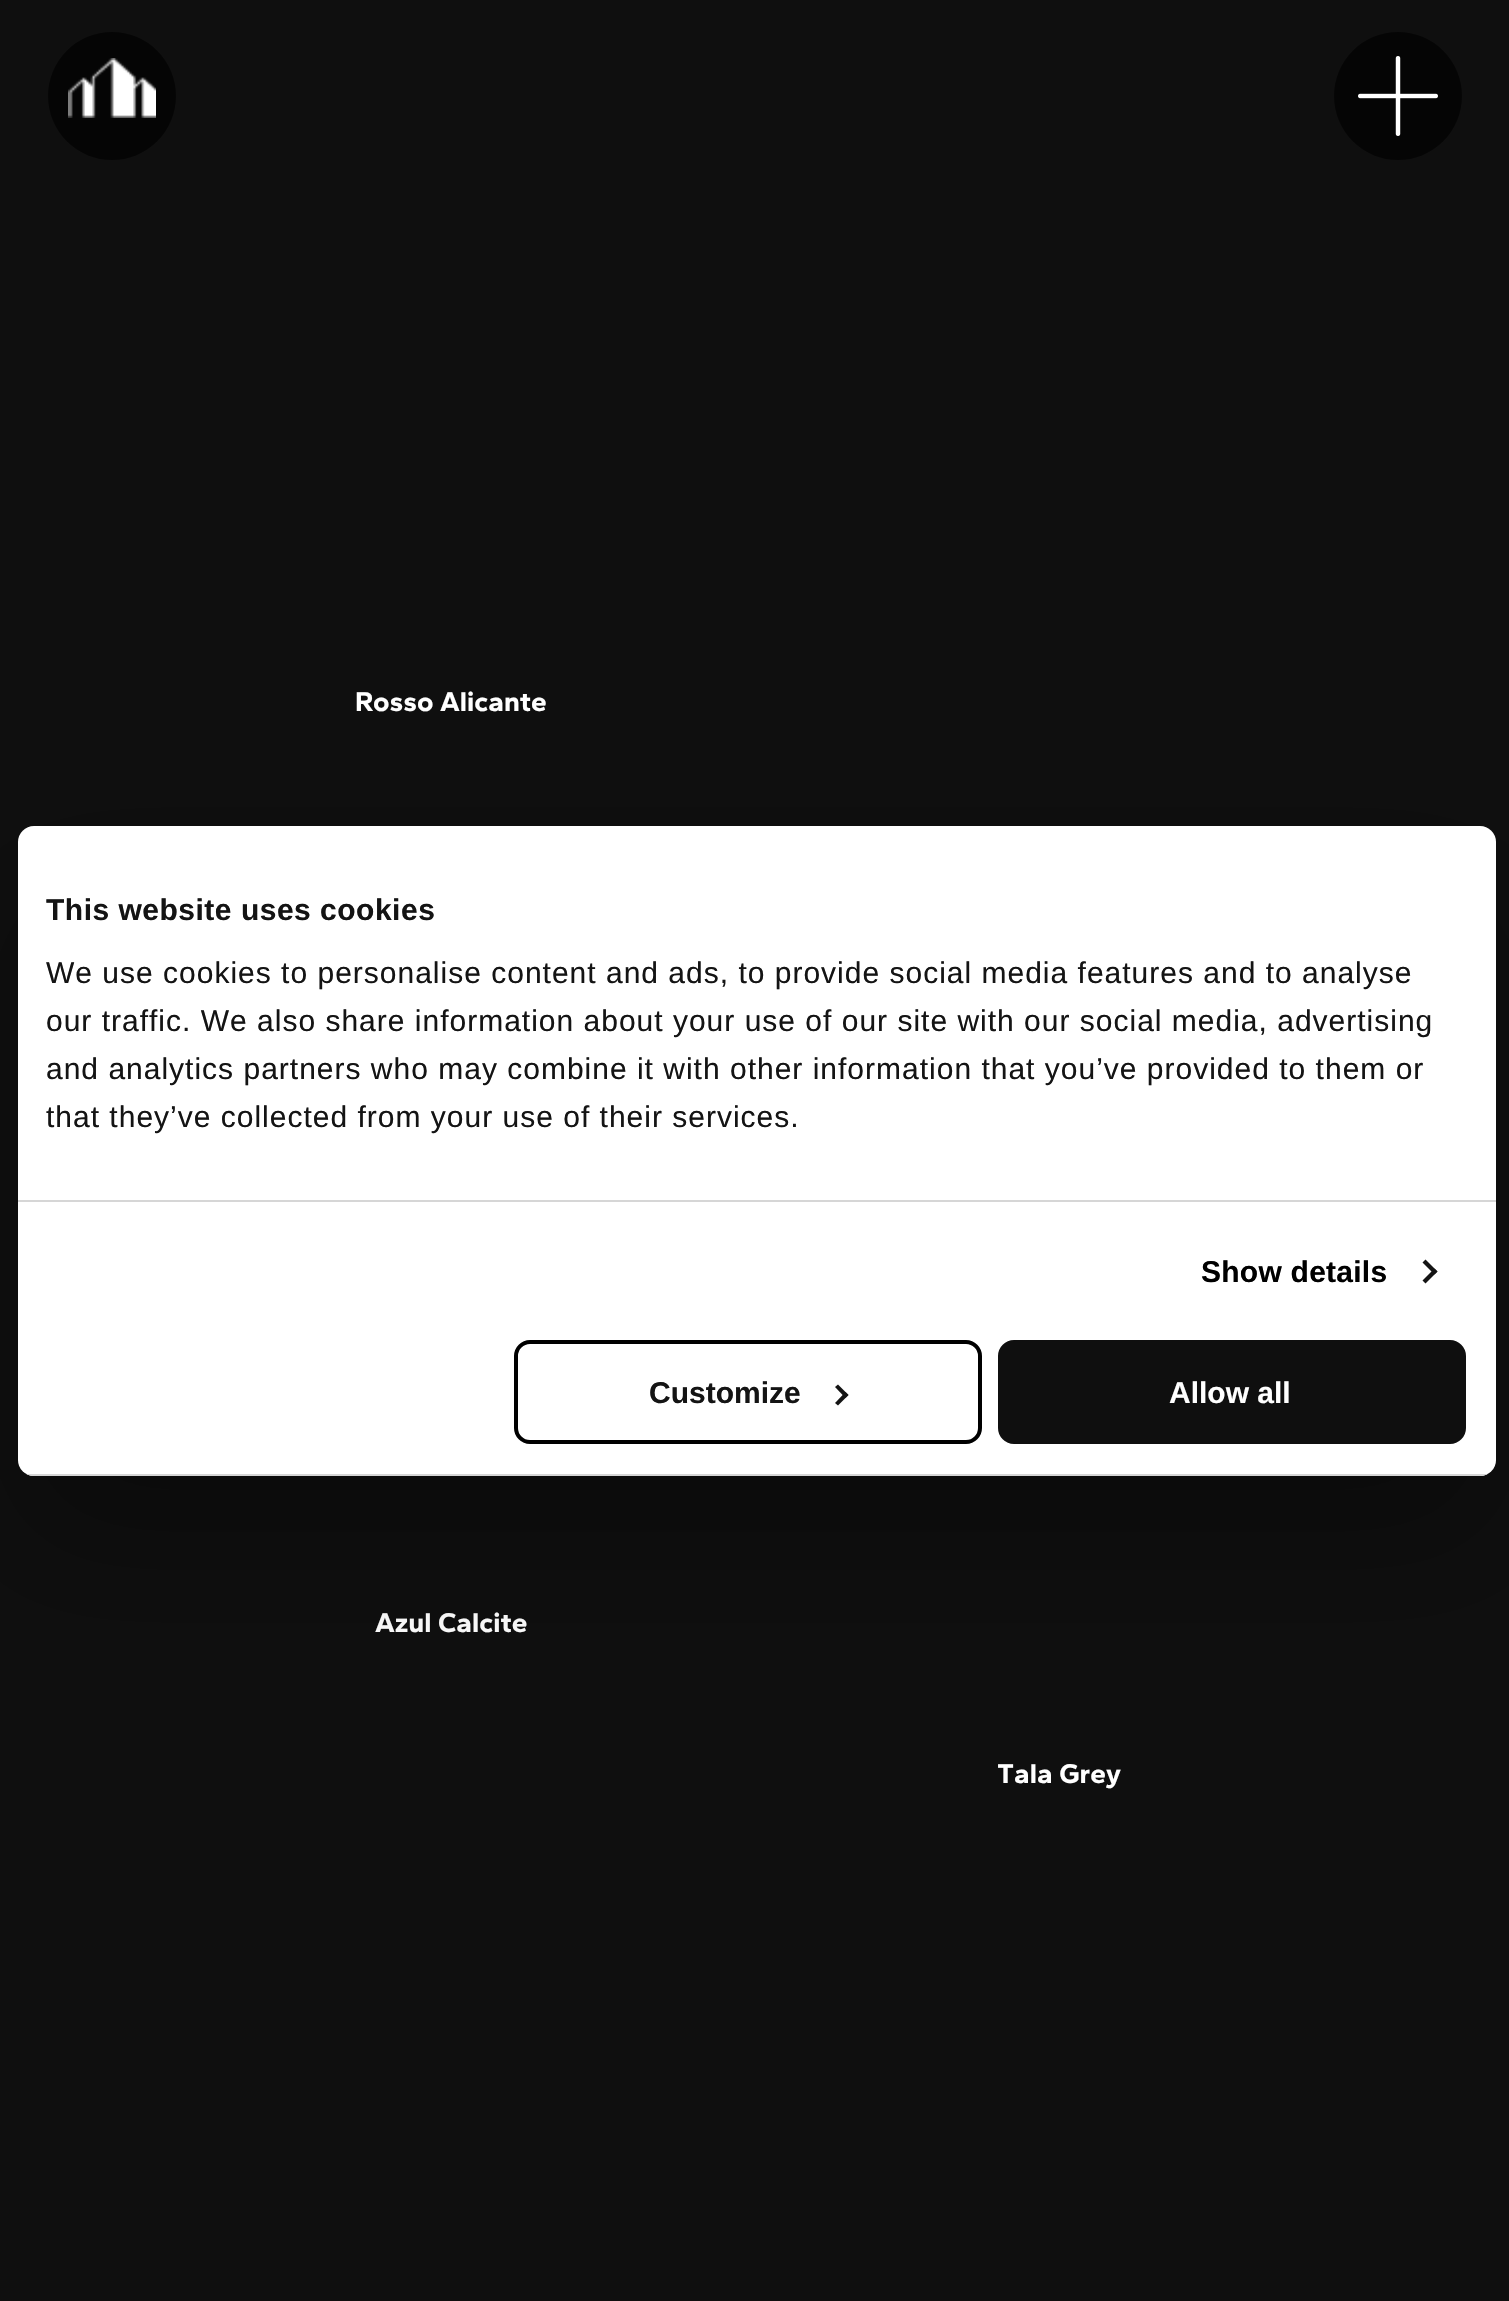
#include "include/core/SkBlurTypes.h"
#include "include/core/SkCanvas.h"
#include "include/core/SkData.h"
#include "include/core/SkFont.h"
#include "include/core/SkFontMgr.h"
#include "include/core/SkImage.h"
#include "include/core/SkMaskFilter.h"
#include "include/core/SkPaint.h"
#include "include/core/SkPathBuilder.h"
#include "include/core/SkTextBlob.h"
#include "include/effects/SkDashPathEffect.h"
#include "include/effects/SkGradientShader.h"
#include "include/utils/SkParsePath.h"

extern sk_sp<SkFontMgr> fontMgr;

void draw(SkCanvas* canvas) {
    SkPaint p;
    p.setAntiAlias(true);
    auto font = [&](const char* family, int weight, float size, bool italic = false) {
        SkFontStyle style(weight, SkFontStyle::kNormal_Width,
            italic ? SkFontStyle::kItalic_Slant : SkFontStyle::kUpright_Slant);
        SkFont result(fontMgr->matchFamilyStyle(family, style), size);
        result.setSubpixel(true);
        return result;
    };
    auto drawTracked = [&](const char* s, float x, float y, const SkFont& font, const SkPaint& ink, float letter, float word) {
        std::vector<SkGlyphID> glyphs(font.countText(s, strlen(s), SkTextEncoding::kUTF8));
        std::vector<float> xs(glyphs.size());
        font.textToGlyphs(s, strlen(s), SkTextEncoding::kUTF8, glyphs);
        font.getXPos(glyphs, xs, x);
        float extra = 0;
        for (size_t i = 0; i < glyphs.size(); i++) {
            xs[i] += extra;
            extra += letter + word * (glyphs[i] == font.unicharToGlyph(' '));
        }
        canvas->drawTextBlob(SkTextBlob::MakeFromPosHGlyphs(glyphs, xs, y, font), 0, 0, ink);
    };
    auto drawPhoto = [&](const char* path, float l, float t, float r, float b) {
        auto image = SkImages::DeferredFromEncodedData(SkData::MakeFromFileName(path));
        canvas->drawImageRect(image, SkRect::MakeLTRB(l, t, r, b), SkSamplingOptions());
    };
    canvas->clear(0xFF0F0F0F);
    p.setColor(0xFF050505);
    canvas->drawCircle(112, 96, 64, p);
    drawPhoto("media/1.png", 68, 58, 156, 118);
    canvas->drawCircle(1398, 96, 64, p);
    drawPhoto("media/2.png", 1358, 56, 1438, 136);
    auto font1 = font("Gantari", 700, 28);
    p.setColor(0xFFFFFFFF);
    {
        const struct { const char* s; float x, y; } items[] = {
            {"Rosso Alicante", 355, 711},
            {"Azul Calcite", 375, 1632},
            {"Tala Grey", 997, 1783},
        };
        for (auto [s, x, y] : items) {
            canvas->drawString(s, x, y, font1, p);
        }
    }
    p.setColor(0x4D000000);
    p.setMaskFilter(SkMaskFilter::MakeBlur(kNormal_SkBlurStyle, 68));
    canvas->drawRoundRect(SkRect::MakeLTRB(18, 890, 1496, 1540), 16, 16, p);
    p.setMaskFilter(nullptr);
    p.setColor(0xFFFFFFFF);
    canvas->drawRoundRect(SkRect::MakeLTRB(18, 826, 1496, 1476), 16, 16, p);
    p.setColor(0xFFD6D6D6);
    canvas->drawRect(SkRect::MakeLTRB(18, 1200, 1496, 1202), p);
    auto font2 = font("Liberation Sans", 700, 30);
    p.setColor(0xFF141414);
    drawTracked("This website uses cookies", 46, 920, font2, p, 0.5f, 0);
    auto font3 = font("Liberation Sans", 400, 30);
    {
        const struct { const char* s; float x, y; } items[] = {
            {"We use cookies to personalise content and ads, to provide social media features and to analyse", 46, 983},
            {"our traffic. We also share information about your use of our site with our social media, advertising", 46, 1031},
            {"and analytics partners who may combine it with other information that you’ve provided to them or", 46, 1079},
            {"that they’ve collected from your use of their services.", 46, 1127},
        };
        for (auto [s, x, y] : items) {
            drawTracked(s, x, y, font3, p, 1, 0);
        }
    }
    p.setColor(0xFF000000);
    drawTracked("Show details", 1201, 1282, font2, p, 0.25f, 0);
    p.setColor(0xFF141414);
    canvas->drawPath(SkPathBuilder().moveTo(1425.5f, 1259.5f).lineTo(1437.5f, 1271.5f).lineTo(1434.5f, 1274.5f).lineTo(1422.5f, 1262.5f).close().detach(), p);
    canvas->drawPath(SkPathBuilder().moveTo(1434.5f, 1268.5f).lineTo(1437.5f, 1271.5f).lineTo(1425.5f, 1283.5f).lineTo(1422.5f, 1280.5f).close().detach(), p);
    canvas->save();
    canvas->clipPath(SkPathBuilder().moveTo(34, 826).lineTo(1480, 826).cubicTo(1489, 826, 1496, 833, 1496, 842).lineTo(1496, 1460).cubicTo(1496, 1469, 1489, 1476, 1480, 1476).lineTo(34, 1476).cubicTo(25, 1476, 18, 1469, 18, 1460).lineTo(18, 842).cubicTo(18, 833, 25, 826, 34, 826).close().detach(), true);
    p.setColor(0xFFD6D6D6);
    canvas->drawRect(SkRect::MakeLTRB(18, 1474, 1496, 1476), p);
    canvas->restore();
    p.setStyle(SkPaint::kStroke_Style);
    p.setStrokeWidth(4);
    p.setColor(0xFF000000);
    canvas->drawRoundRect(SkRect::MakeLTRB(516, 1342, 980, 1442), 14, 14, p);
    p.setStyle(SkPaint::kFill_Style);
    p.setColor(0xFF141414);
    canvas->drawString("Customize", 649, 1403, font2, p);
    canvas->drawPath(SkPathBuilder().moveTo(838, 1384.5f).lineTo(848.5f, 1395).lineTo(845.5f, 1398).lineTo(835, 1387).close().detach(), p);
    canvas->drawPath(SkPathBuilder().moveTo(845.5f, 1392).lineTo(848.5f, 1395).lineTo(838, 1405.5f).lineTo(835, 1403).close().detach(), p);
    p.setColor(0xFF0F0F0F);
    canvas->drawRoundRect(SkRect::MakeLTRB(1000, 1342, 1464, 1442), 14, 14, p);
    p.setStyle(SkPaint::kStroke_Style);
    canvas->drawRoundRect(SkRect::MakeLTRB(1000, 1342, 1464, 1442), 14, 14, p);
    p.setStyle(SkPaint::kFill_Style);
    p.setColor(0xFFFFFFFF);
    canvas->drawString("Allow all", 1169, 1403, font2, p);
}
